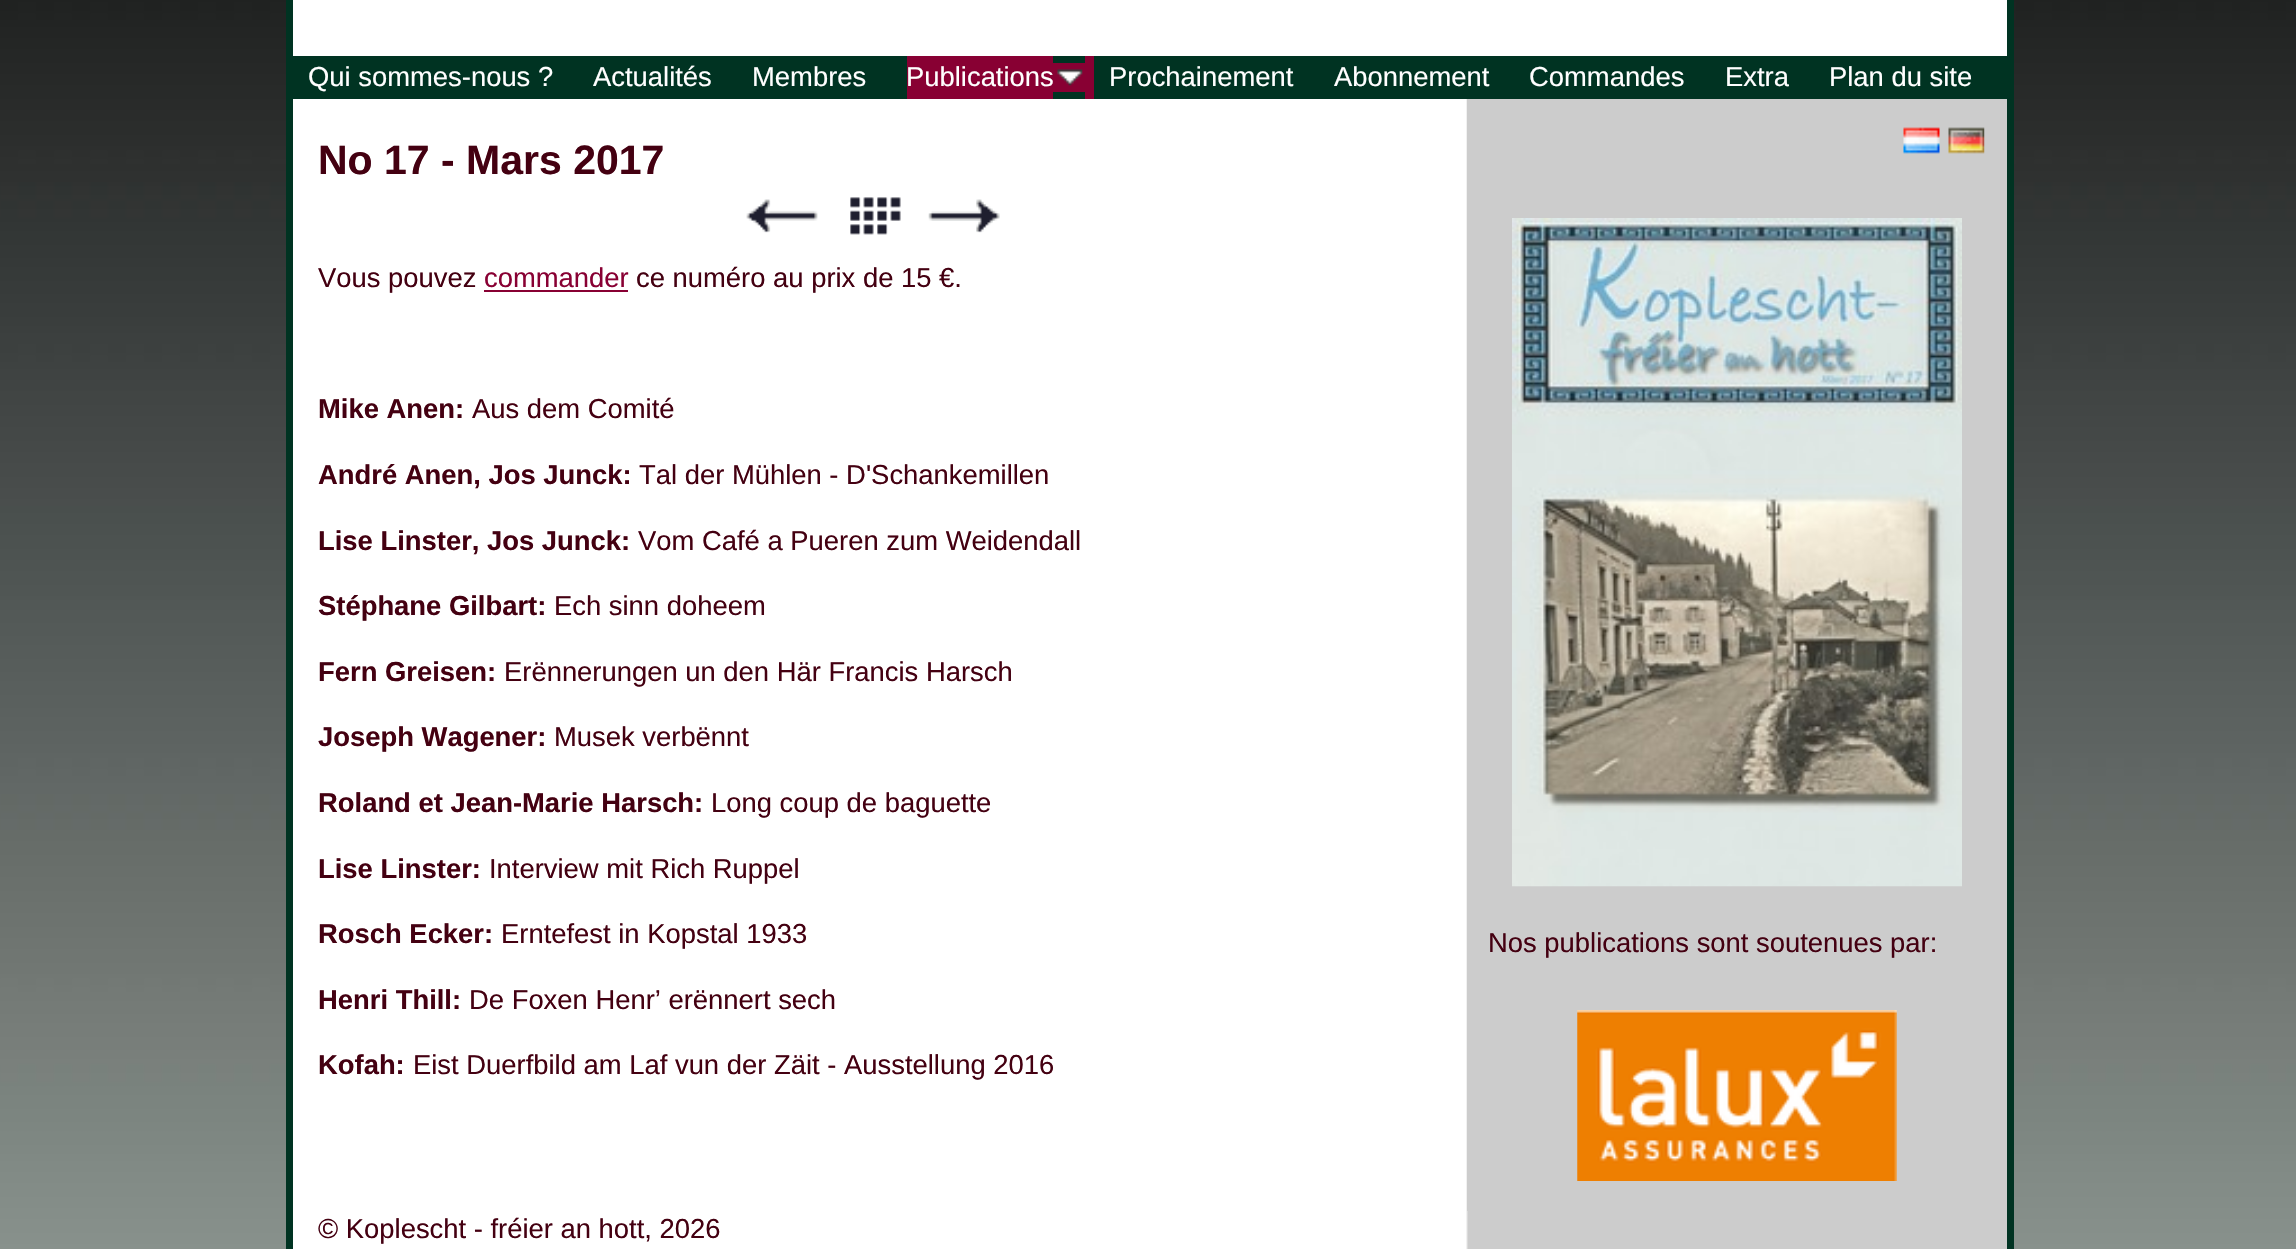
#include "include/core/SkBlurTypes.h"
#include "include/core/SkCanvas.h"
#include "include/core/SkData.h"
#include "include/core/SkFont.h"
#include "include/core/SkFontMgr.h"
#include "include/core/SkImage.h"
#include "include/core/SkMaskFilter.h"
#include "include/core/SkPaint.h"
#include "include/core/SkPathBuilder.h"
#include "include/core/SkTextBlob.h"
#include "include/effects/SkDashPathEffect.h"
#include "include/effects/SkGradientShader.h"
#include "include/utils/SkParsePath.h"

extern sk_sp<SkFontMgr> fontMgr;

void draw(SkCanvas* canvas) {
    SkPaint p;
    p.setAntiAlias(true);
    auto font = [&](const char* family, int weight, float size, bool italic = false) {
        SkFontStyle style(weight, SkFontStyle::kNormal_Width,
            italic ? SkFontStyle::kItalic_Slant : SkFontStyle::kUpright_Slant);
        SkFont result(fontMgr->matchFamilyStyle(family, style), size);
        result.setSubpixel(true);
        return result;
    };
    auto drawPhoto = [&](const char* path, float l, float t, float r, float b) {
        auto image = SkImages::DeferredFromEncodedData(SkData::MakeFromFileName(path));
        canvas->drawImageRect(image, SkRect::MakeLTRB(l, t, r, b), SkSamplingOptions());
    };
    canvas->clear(0xFFFFFFFF);
    drawPhoto("media/1.png", 0, 0, 2296, 1249);
    {
        const struct { float l, t, r, b; SkColor color; } items[] = {
            {293, 99, 1468, 1249, 0xFFFFFFFF},
            {2007, 0, 2014, 1249, 0xFF003322},
            {286, 0, 293, 1249, 0xFF003322},
        };
        for (auto [l, t, r, b, color] : items) {
            p.setColor(color);
            canvas->drawRect(SkRect::MakeLTRB(l, t, r, b), p);
        }
    }
    drawPhoto("media/2.png", 1466, 99, 2007, 1249);
    p.setColor(0xFFFFFFFF);
    canvas->drawRect(SkRect::MakeLTRB(293, 0, 2007, 56), p);
    p.setColor(0xFF003322);
    canvas->drawRect(SkRect::MakeLTRB(293, 56, 2007, 99), p);
    auto font1 = font("Liberation Sans", 400, 27.4f);
    p.setColor(0xFFFFFFFF);
    {
        const struct { const char* s; float x, y; } items[] = {
            {"Qui sommes-nous ?", 308, 86},
            {"Actualités", 593, 86},
            {"Membres", 752, 86},
        };
        for (auto [s, x, y] : items) {
            canvas->drawString(s, x, y, font1, p);
        }
    }
    {
        const struct { float l, t, r, b; SkColor color; } items[] = {
            {907, 56, 1053, 99, 0xFF880033},
            {1053, 63, 1085, 92, 0xFF880033},
            {1085, 56, 1094, 99, 0xFF880033},
        };
        for (auto [l, t, r, b, color] : items) {
            p.setColor(color);
            canvas->drawRect(SkRect::MakeLTRB(l, t, r, b), p);
        }
    }
    p.setColor(0xFFFFFFFF);
    canvas->drawString("Publications", 906, 86, font1, p);
    drawPhoto("media/3.png", 1057, 69, 1083, 86);
    {
        const struct { const char* s; float x, y; } items[] = {
            {"Prochainement", 1109, 86},
            {"Abonnement", 1334, 86},
            {"Commandes", 1529, 86},
            {"Extra", 1725, 86},
            {"Plan du site", 1829, 86},
        };
        for (auto [s, x, y] : items) {
            canvas->drawString(s, x, y, font1, p);
        }
    }
    auto font2 = font("Liberation Sans", 700, 41);
    p.setColor(0xFF440011);
    canvas->drawString("No 17 - Mars 2017", 318, 174, font2, p);
    drawPhoto("media/4.png", 747, 199, 818, 232);
    drawPhoto("media/5.png", 746, 199, 818, 233);
    drawPhoto("media/6.png", 850, 197, 901, 235);
    drawPhoto("media/7.png", 850, 197, 901, 235);
    drawPhoto("media/8.png", 928, 199, 1000, 232);
    drawPhoto("media/9.png", 928, 199, 1000, 233);
    canvas->drawString("Vous pouvez", 318, 287, font1, p);
    p.setColor(0xFF880033);
    canvas->drawString("commander", 484, 287, font1, p);
    canvas->drawRect(SkRect::MakeLTRB(484, 290, 628, 292), p);
    p.setColor(0xFF440011);
    canvas->drawString("ce numéro au prix de 15 €.", 636, 287, font1, p);
    auto font3 = font("Liberation Sans", 700, 27.4f);
    canvas->drawString("Mike Anen:", 318, 418, font3, p);
    canvas->drawString("Aus dem Comité", 472, 418, font1, p);
    canvas->drawString("André Anen, Jos Junck:", 318, 484, font3, p);
    canvas->drawString("Tal der Mühlen - D'Schankemillen", 639, 484, font1, p);
    canvas->drawString("Lise Linster, Jos Junck:", 318, 550, font3, p);
    canvas->drawString("Vom Café a Pueren zum Weidendall", 638, 550, font1, p);
    canvas->drawString("Stéphane Gilbart:", 318, 615, font3, p);
    canvas->drawString("Ech sinn doheem", 554, 615, font1, p);
    canvas->drawString("Fern Greisen:", 318, 681, font3, p);
    canvas->drawString("Erënnerungen un den Här Francis Harsch", 504, 681, font1, p);
    canvas->drawString("Joseph Wagener:", 318, 746, font3, p);
    canvas->drawString("Musek verbënnt", 554, 746, font1, p);
    canvas->drawString("Roland et Jean-Marie Harsch:", 318, 812, font3, p);
    canvas->drawString("Long coup de baguette", 711, 812, font1, p);
    canvas->drawString("Lise Linster:", 318, 878, font3, p);
    canvas->drawString("Interview mit Rich Ruppel", 489, 878, font1, p);
    canvas->drawString("Rosch Ecker:", 318, 943, font3, p);
    canvas->drawString("Erntefest in Kopstal 1933", 501, 943, font1, p);
    canvas->drawString("Henri Thill:", 318, 1009, font3, p);
    canvas->drawString("De Foxen Henr’ erënnert sech", 469, 1009, font1, p);
    canvas->drawString("Kofah:", 318, 1074, font3, p);
    canvas->drawString("Eist Duerfbild am Laf vun der Zäit - Ausstellung 2016", 413, 1074, font1, p);
    p.setColor(0xFFCCCCCC);
    canvas->drawRect(SkRect::MakeLTRB(1467, 99, 1468, 1211), p);
    drawPhoto("media/10.png", 1903, 127, 1940, 154);
    drawPhoto("media/11.png", 1948, 127, 1985, 154);
    drawPhoto("media/12.png", 1512, 218, 1962, 887);
    p.setColor(0xFF440011);
    canvas->drawString("Nos publications sont soutenues par:", 1488, 952, font1, p);
    drawPhoto("media/13.png", 1577, 1010, 1897, 1181);
    canvas->drawString("© Koplescht - fréier an hott, 2026", 318, 1238, font1, p);
}
